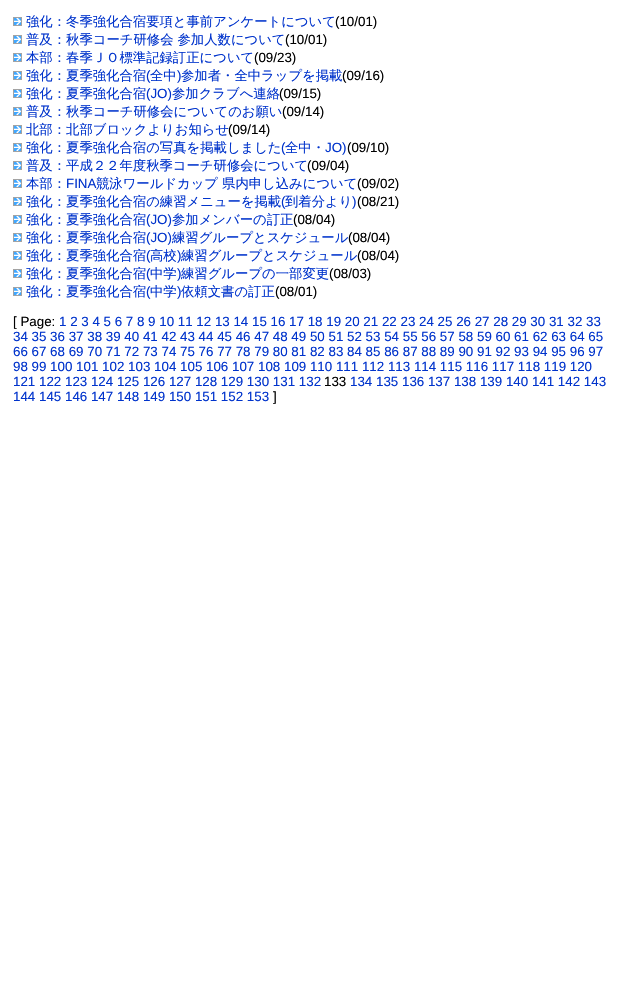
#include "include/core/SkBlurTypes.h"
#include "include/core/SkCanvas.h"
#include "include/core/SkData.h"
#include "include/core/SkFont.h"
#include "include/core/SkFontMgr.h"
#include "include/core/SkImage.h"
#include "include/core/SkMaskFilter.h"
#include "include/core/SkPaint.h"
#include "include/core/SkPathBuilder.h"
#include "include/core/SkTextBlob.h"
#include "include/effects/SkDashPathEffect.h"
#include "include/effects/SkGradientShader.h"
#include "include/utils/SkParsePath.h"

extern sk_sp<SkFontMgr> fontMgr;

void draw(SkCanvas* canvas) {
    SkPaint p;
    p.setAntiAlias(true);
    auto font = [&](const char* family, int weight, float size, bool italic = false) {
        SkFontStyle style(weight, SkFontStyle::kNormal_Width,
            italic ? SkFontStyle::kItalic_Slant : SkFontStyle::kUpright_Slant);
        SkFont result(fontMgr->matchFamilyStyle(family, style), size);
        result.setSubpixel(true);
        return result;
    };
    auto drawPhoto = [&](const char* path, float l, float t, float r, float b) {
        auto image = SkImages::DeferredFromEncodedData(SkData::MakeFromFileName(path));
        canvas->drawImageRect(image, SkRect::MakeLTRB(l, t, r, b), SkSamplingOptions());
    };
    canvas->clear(0xFFFFFFFF);
    drawPhoto("media/1.png", 13, 17, 22, 26);
    auto font1 = font("WenQuanYi Zen Hei", 500, 13.35f);
    p.setColor(0xFF0033CC);
    canvas->drawString("強化：冬季強化合宿要項と事前アンケートについて", 26, 26, font1, p);
    auto font2 = font("Liberation Sans", 400, 13.35f);
    p.setColor(0xFF000000);
    canvas->drawString("(10/01)", 335, 26, font2, p);
    drawPhoto("media/1.png", 13, 35, 22, 44);
    p.setColor(0xFF0033CC);
    canvas->drawString("普及：秋季コーチ研修会 参加人数について", 26, 44, font1, p);
    p.setColor(0xFF000000);
    canvas->drawString("(10/01)", 285, 44, font2, p);
    drawPhoto("media/1.png", 13, 53, 22, 62);
    p.setColor(0xFF0033CC);
    canvas->drawString("本部：春季ＪＯ標準記録訂正について", 26, 62, font1, p);
    p.setColor(0xFF000000);
    canvas->drawString("(09/23)", 254, 62, font2, p);
    drawPhoto("media/1.png", 13, 71, 22, 80);
    p.setColor(0xFF0033CC);
    canvas->drawString("強化：夏季強化合宿", 26, 80, font1, p);
    canvas->drawString("(", 146, 80, font2, p);
    canvas->drawString("全中", 150, 80, font1, p);
    canvas->drawString(")", 177, 80, font2, p);
    canvas->drawString("参加者・全中ラップを掲載", 181, 80, font1, p);
    p.setColor(0xFF000000);
    canvas->drawString("(09/16)", 342, 80, font2, p);
    drawPhoto("media/1.png", 13, 89, 22, 98);
    p.setColor(0xFF0033CC);
    canvas->drawString("強化：夏季強化合宿", 26, 98, font1, p);
    canvas->drawString("(JO)", 146, 98, font2, p);
    canvas->drawString("参加クラブへ連絡", 172, 98, font1, p);
    p.setColor(0xFF000000);
    canvas->drawString("(09/15)", 279, 98, font2, p);
    drawPhoto("media/1.png", 13, 107, 22, 116);
    p.setColor(0xFF0033CC);
    canvas->drawString("普及：秋季コーチ研修会についてのお願い", 26, 116, font1, p);
    p.setColor(0xFF000000);
    canvas->drawString("(09/14)", 282, 116, font2, p);
    drawPhoto("media/1.png", 13, 125, 22, 134);
    p.setColor(0xFF0033CC);
    canvas->drawString("北部：北部ブロックよりお知らせ", 26, 134, font1, p);
    p.setColor(0xFF000000);
    canvas->drawString("(09/14)", 228, 134, font2, p);
    drawPhoto("media/1.png", 13, 143, 22, 152);
    p.setColor(0xFF0033CC);
    canvas->drawString("強化：夏季強化合宿の写真を掲載しました", 26, 152, font1, p);
    canvas->drawString("(", 281, 152, font2, p);
    canvas->drawString("全中・", 285, 152, font1, p);
    canvas->drawString("JO)", 325, 152, font2, p);
    p.setColor(0xFF000000);
    canvas->drawString("(09/10)", 347, 152, font2, p);
    drawPhoto("media/1.png", 13, 161, 22, 170);
    p.setColor(0xFF0033CC);
    canvas->drawString("普及：平成２２年度秋季コーチ研修会について", 26, 170, font1, p);
    p.setColor(0xFF000000);
    canvas->drawString("(09/04)", 307, 170, font2, p);
    drawPhoto("media/1.png", 13, 179, 22, 188);
    p.setColor(0xFF0033CC);
    canvas->drawString("本部：", 26, 188, font1, p);
    canvas->drawString("FINA", 66, 188, font2, p);
    canvas->drawString("競泳ワールドカップ 県内申し込みについて", 96, 188, font1, p);
    p.setColor(0xFF000000);
    canvas->drawString("(09/02)", 357, 188, font2, p);
    drawPhoto("media/1.png", 13, 197, 22, 206);
    p.setColor(0xFF0033CC);
    canvas->drawString("強化：夏季強化合宿の練習メニューを掲載", 26, 206, font1, p);
    canvas->drawString("(", 281, 206, font2, p);
    canvas->drawString("到着分より", 285, 206, font1, p);
    canvas->drawString(")", 352, 206, font2, p);
    p.setColor(0xFF000000);
    canvas->drawString("(08/21)", 357, 206, font2, p);
    drawPhoto("media/1.png", 13, 215, 22, 224);
    p.setColor(0xFF0033CC);
    canvas->drawString("強化：夏季強化合宿", 26, 224, font1, p);
    canvas->drawString("(JO)", 146, 224, font2, p);
    canvas->drawString("参加メンバーの訂正", 172, 224, font1, p);
    p.setColor(0xFF000000);
    canvas->drawString("(08/04)", 293, 224, font2, p);
    drawPhoto("media/1.png", 13, 233, 22, 242);
    p.setColor(0xFF0033CC);
    canvas->drawString("強化：夏季強化合宿", 26, 242, font1, p);
    canvas->drawString("(JO)", 146, 242, font2, p);
    canvas->drawString("練習グループとスケジュール", 172, 242, font1, p);
    p.setColor(0xFF000000);
    canvas->drawString("(08/04)", 348, 242, font2, p);
    drawPhoto("media/1.png", 13, 251, 22, 260);
    p.setColor(0xFF0033CC);
    canvas->drawString("強化：夏季強化合宿", 26, 260, font1, p);
    canvas->drawString("(", 146, 260, font2, p);
    canvas->drawString("高校", 150, 260, font1, p);
    canvas->drawString(")", 177, 260, font2, p);
    canvas->drawString("練習グループとスケジュール", 181, 260, font1, p);
    p.setColor(0xFF000000);
    canvas->drawString("(08/04)", 357, 260, font2, p);
    drawPhoto("media/1.png", 13, 269, 22, 278);
    p.setColor(0xFF0033CC);
    canvas->drawString("強化：夏季強化合宿", 26, 278, font1, p);
    canvas->drawString("(", 146, 278, font2, p);
    canvas->drawString("中学", 150, 278, font1, p);
    canvas->drawString(")", 177, 278, font2, p);
    canvas->drawString("練習グループの一部変更", 181, 278, font1, p);
    p.setColor(0xFF000000);
    canvas->drawString("(08/03)", 329, 278, font2, p);
    drawPhoto("media/1.png", 13, 287, 22, 296);
    p.setColor(0xFF0033CC);
    canvas->drawString("強化：夏季強化合宿", 26, 296, font1, p);
    canvas->drawString("(", 146, 296, font2, p);
    canvas->drawString("中学", 150, 296, font1, p);
    canvas->drawString(")", 177, 296, font2, p);
    canvas->drawString("依頼文書の訂正", 181, 296, font1, p);
    p.setColor(0xFF000000);
    canvas->drawString("(08/01)", 275, 296, font2, p);
    canvas->drawString("[ Page:", 13, 326, font2, p);
    p.setColor(0xFF0033CC);
    {
        const struct { const char* s; float x, y; } items[] = {
            {"1 2 3 4 5 6 7 8 9 10 11 12 13 14 15 16 17 18 19 20 21 22 23 24 25 26 27 28 29 30 31 32 33", 59, 326},
            {"34 35 36 37 38 39 40 41 42 43 44 45 46 47 48 49 50 51 52 53 54 55 56 57 58 59 60 61 62 63 64 65", 13, 341},
            {"66 67 68 69 70 71 72 73 74 75 76 77 78 79 80 81 82 83 84 85 86 87 88 89 90 91 92 93 94 95 96 97", 13, 356},
            {"98 99 100 101 102 103 104 105 106 107 108 109 110 111 112 113 114 115 116 117 118 119 120", 13, 371},
            {"121 122 123 124 125 126 127 128 129 130 131 132", 13, 386},
        };
        for (auto [s, x, y] : items) {
            canvas->drawString(s, x, y, font2, p);
        }
    }
    p.setColor(0xFF000000);
    canvas->drawString("133", 324, 386, font2, p);
    p.setColor(0xFF0033CC);
    canvas->drawString("134 135 136 137 138 139 140 141 142 143", 350, 386, font2, p);
    canvas->drawString("144 145 146 147 148 149 150 151 152 153", 13, 401, font2, p);
    p.setColor(0xFF000000);
    canvas->drawString("]", 273, 401, font2, p);
}
